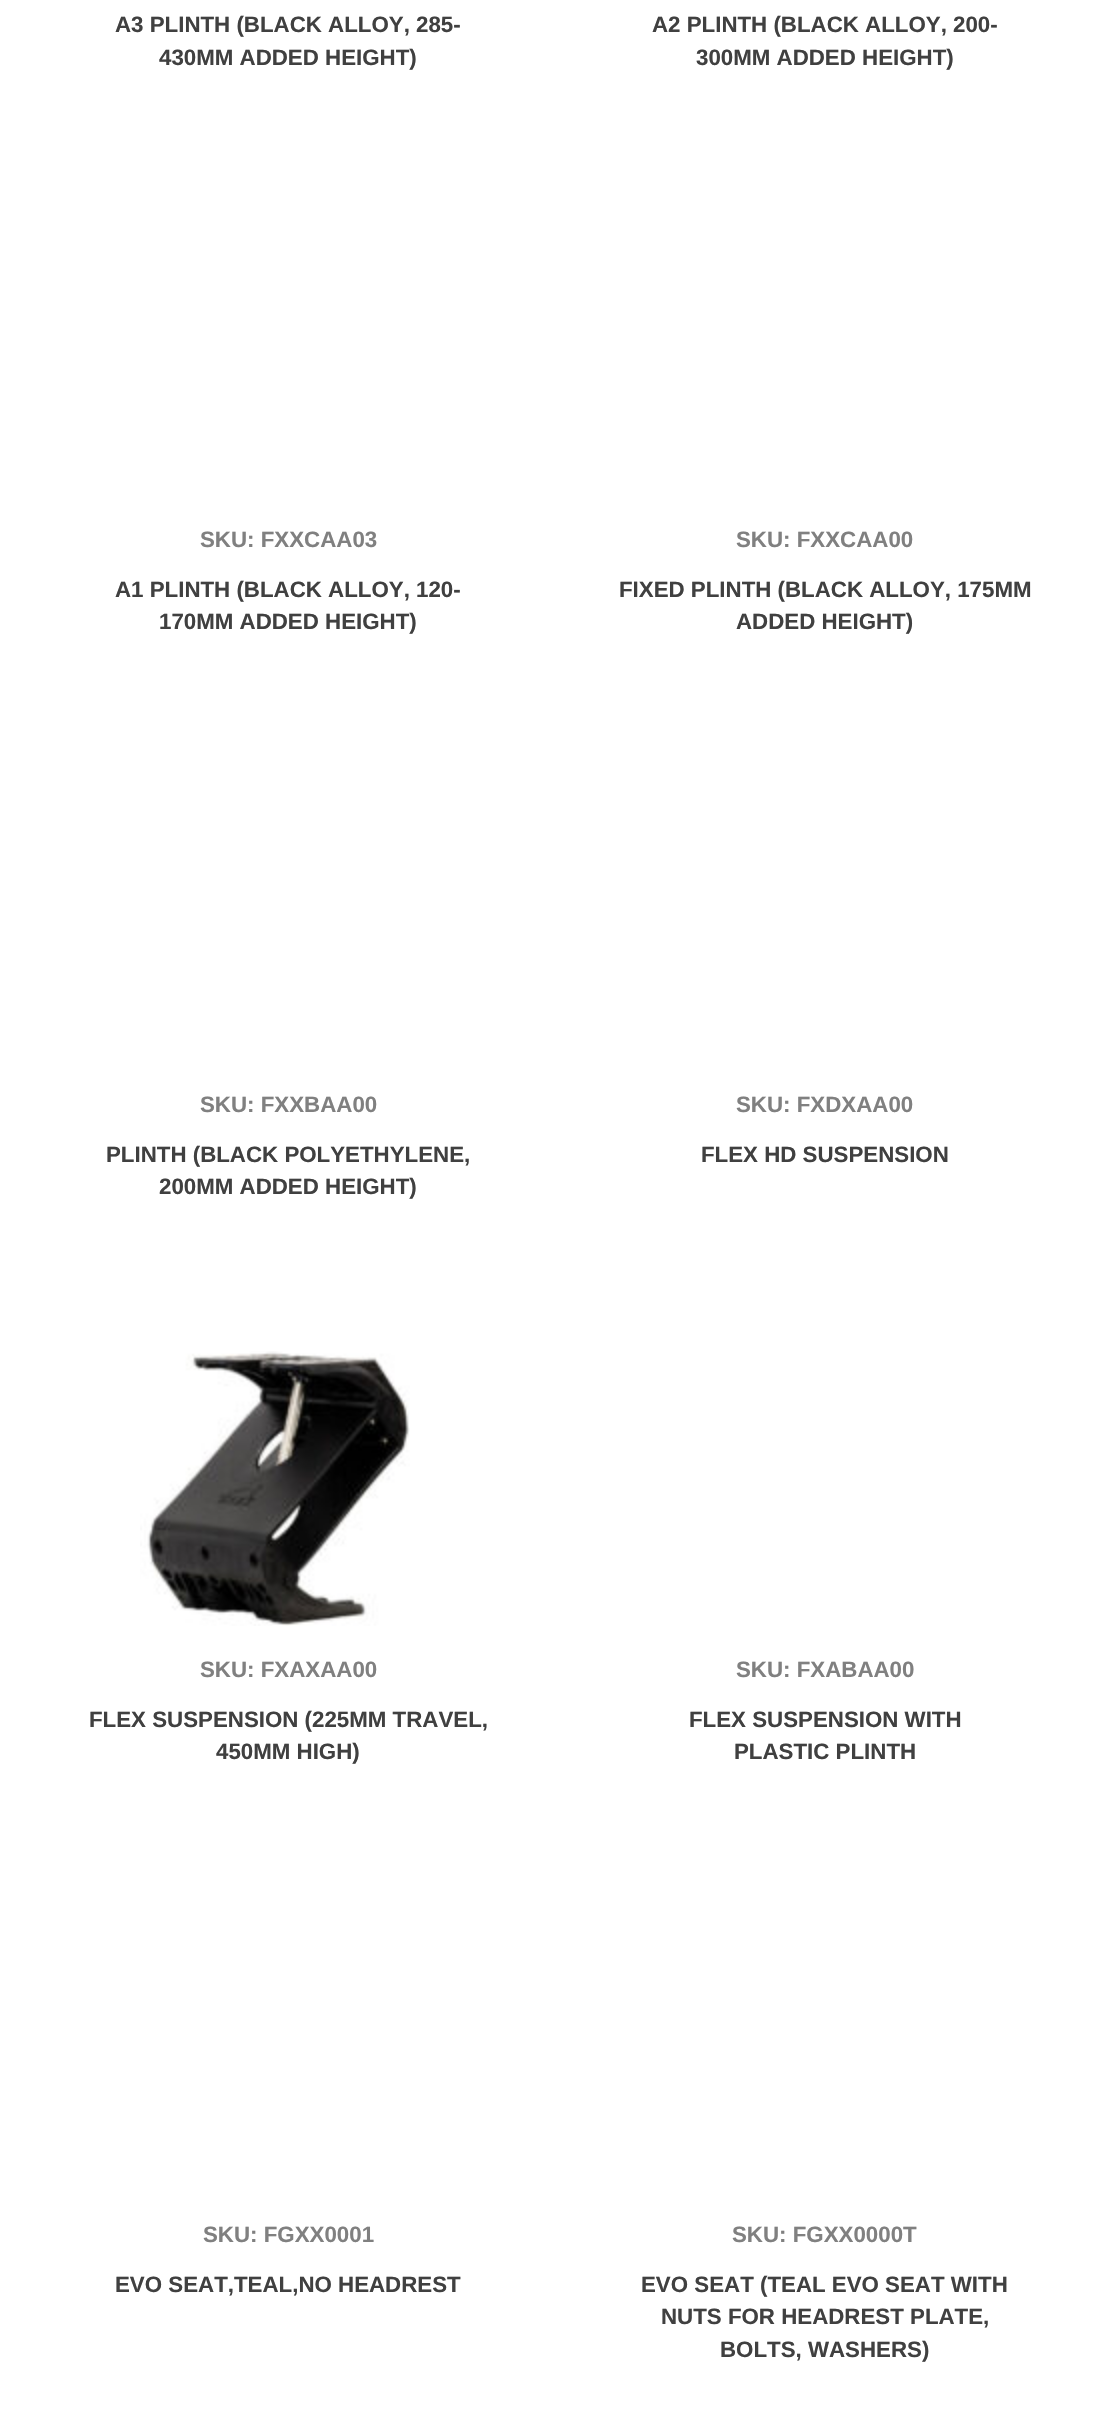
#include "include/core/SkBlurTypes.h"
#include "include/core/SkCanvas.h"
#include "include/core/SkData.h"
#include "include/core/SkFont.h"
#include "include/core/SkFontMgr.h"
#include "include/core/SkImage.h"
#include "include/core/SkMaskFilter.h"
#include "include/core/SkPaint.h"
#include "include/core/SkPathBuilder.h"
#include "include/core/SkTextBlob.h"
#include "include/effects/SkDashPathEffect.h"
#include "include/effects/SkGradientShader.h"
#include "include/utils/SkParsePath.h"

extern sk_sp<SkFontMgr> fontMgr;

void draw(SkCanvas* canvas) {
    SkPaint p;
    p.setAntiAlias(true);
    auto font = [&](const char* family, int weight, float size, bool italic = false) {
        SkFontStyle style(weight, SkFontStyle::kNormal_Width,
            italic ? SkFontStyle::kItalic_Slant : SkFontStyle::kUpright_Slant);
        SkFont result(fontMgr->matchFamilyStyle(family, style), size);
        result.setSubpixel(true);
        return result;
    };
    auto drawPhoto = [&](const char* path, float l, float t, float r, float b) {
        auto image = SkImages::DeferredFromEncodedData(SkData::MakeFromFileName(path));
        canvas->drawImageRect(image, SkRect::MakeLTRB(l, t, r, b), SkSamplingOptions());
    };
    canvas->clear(0xFFFFFFFF);
    auto font1 = font("Liberation Sans", 700, 22.3f);
    p.setColor(0xFF404040);
    {
        const struct { const char* s; float x, y; } items[] = {
            {"A3 PLINTH (BLACK ALLOY, 285-", 115, 32},
            {"430MM ADDED HEIGHT)", 159, 65},
            {"A2 PLINTH (BLACK ALLOY, 200-", 652, 32},
            {"300MM ADDED HEIGHT)", 696, 65},
        };
        for (auto [s, x, y] : items) {
            canvas->drawString(s, x, y, font1, p);
        }
    }
    p.setColor(0xFF808080);
    canvas->drawString("SKU: FXXCAA03", 200, 547, font1, p);
    p.setColor(0xFF404040);
    canvas->drawString("A1 PLINTH (BLACK ALLOY, 120-", 115, 597, font1, p);
    canvas->drawString("170MM ADDED HEIGHT)", 159, 629, font1, p);
    p.setColor(0xFF808080);
    canvas->drawString("SKU: FXXCAA00", 736, 547, font1, p);
    p.setColor(0xFF404040);
    canvas->drawString("FIXED PLINTH (BLACK ALLOY, 175MM", 619, 597, font1, p);
    canvas->drawString("ADDED HEIGHT)", 736, 629, font1, p);
    p.setColor(0xFF808080);
    canvas->drawString("SKU: FXXBAA00", 200, 1112, font1, p);
    p.setColor(0xFF404040);
    canvas->drawString("PLINTH (BLACK POLYETHYLENE,", 106, 1162, font1, p);
    canvas->drawString("200MM ADDED HEIGHT)", 159, 1194, font1, p);
    p.setColor(0xFF808080);
    canvas->drawString("SKU: FXDXAA00", 736, 1112, font1, p);
    p.setColor(0xFF404040);
    canvas->drawString("FLEX HD SUSPENSION", 701, 1162, font1, p);
    drawPhoto("media/1.png", 140, 1351, 410, 1626);
    p.setColor(0xFF808080);
    canvas->drawString("SKU: FXAXAA00", 200, 1677, font1, p);
    p.setColor(0xFF404040);
    canvas->drawString("FLEX SUSPENSION (225MM TRAVEL,", 89, 1727, font1, p);
    canvas->drawString("450MM HIGH)", 216, 1759, font1, p);
    p.setColor(0xFF808080);
    canvas->drawString("SKU: FXABAA00", 736, 1677, font1, p);
    p.setColor(0xFF404040);
    canvas->drawString("FLEX SUSPENSION WITH", 689, 1727, font1, p);
    canvas->drawString("PLASTIC PLINTH", 734, 1759, font1, p);
    p.setColor(0xFF808080);
    canvas->drawString("SKU: FGXX0001", 203, 2242, font1, p);
    p.setColor(0xFF404040);
    canvas->drawString("EVO SEAT,TEAL,NO HEADREST", 115, 2292, font1, p);
    p.setColor(0xFF808080);
    canvas->drawString("SKU: FGXX0000T", 732, 2242, font1, p);
    p.setColor(0xFF404040);
    {
        const struct { const char* s; float x, y; } items[] = {
            {"EVO SEAT (TEAL EVO SEAT WITH", 641, 2292},
            {"NUTS FOR HEADREST PLATE,", 661, 2324},
            {"BOLTS, WASHERS)", 720, 2357},
        };
        for (auto [s, x, y] : items) {
            canvas->drawString(s, x, y, font1, p);
        }
    }
}
